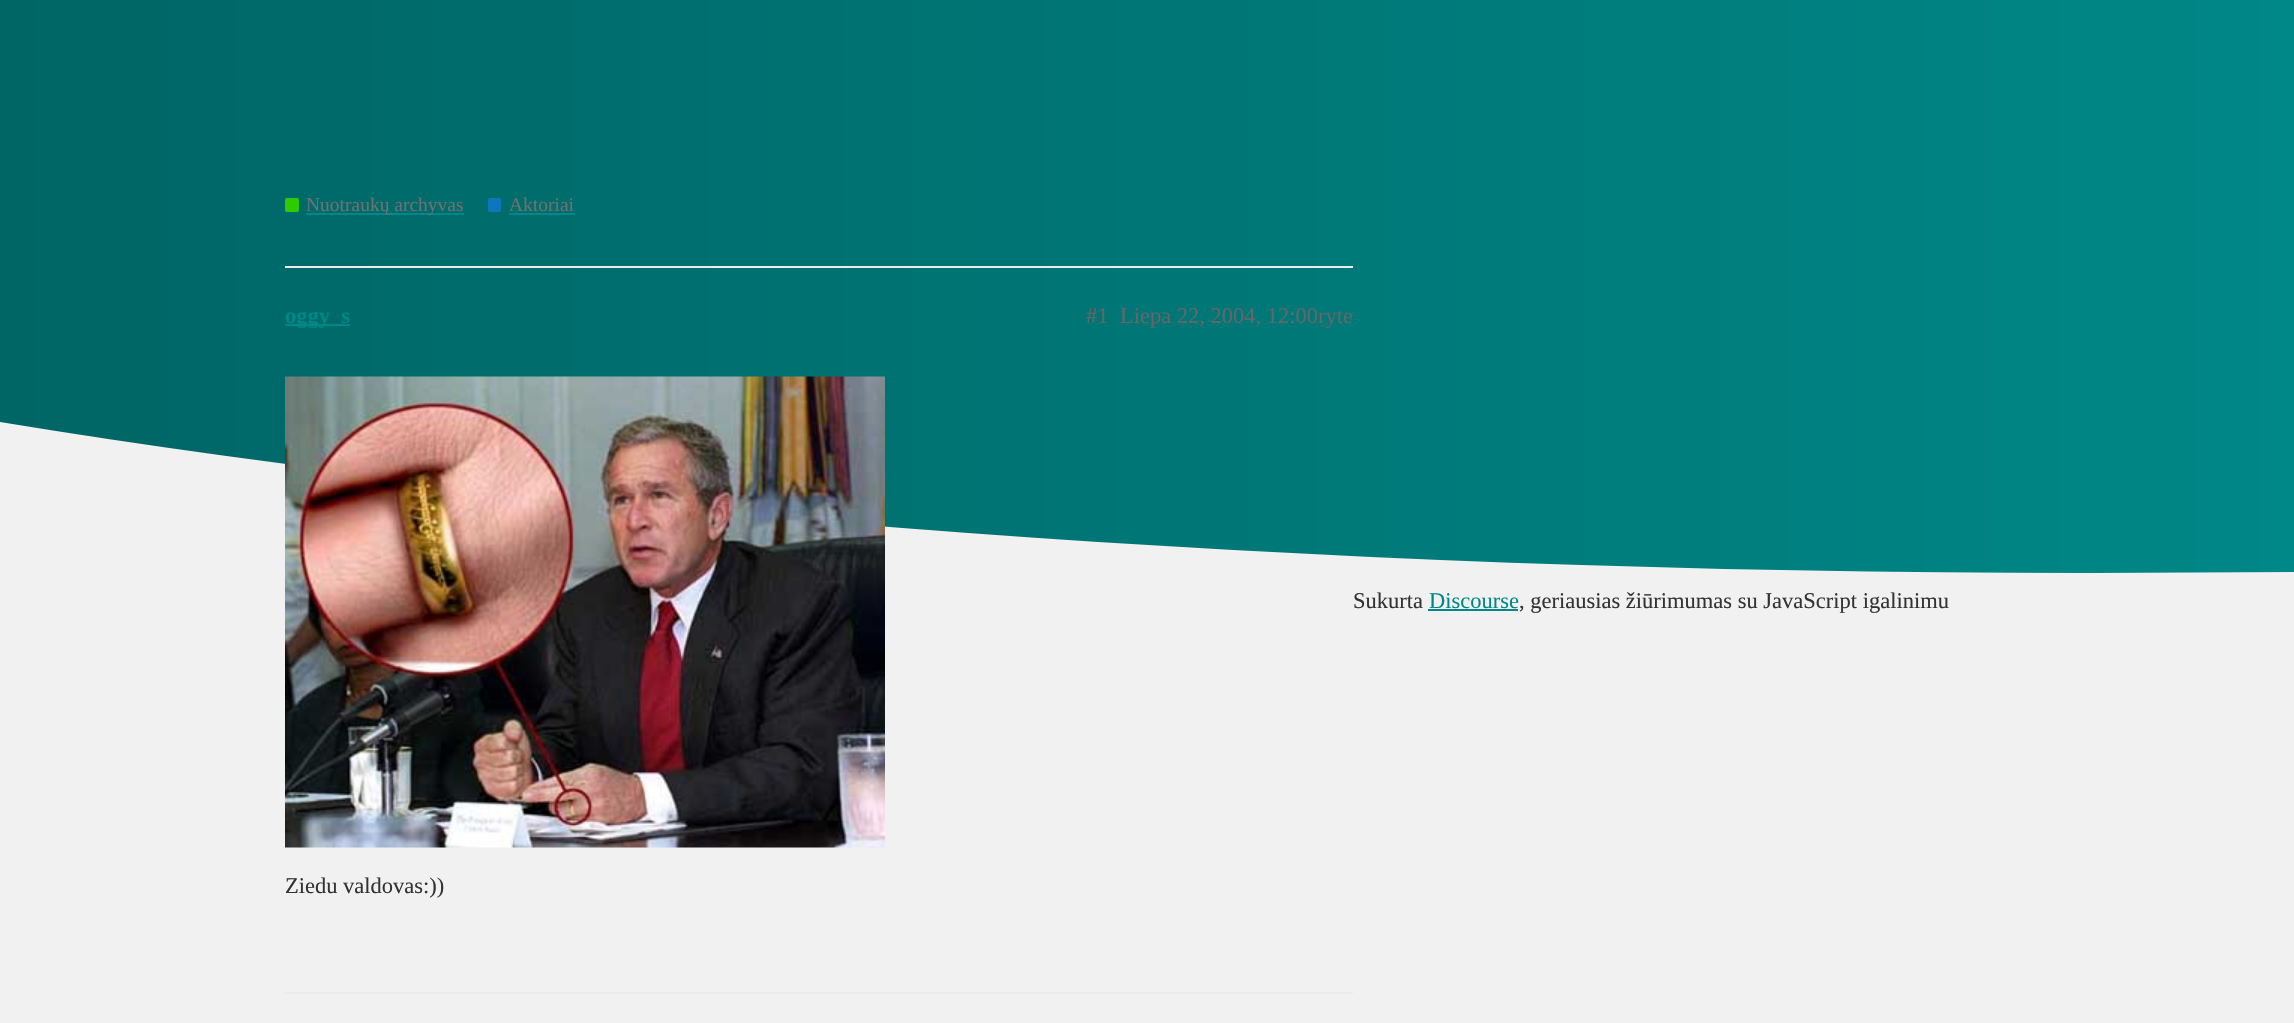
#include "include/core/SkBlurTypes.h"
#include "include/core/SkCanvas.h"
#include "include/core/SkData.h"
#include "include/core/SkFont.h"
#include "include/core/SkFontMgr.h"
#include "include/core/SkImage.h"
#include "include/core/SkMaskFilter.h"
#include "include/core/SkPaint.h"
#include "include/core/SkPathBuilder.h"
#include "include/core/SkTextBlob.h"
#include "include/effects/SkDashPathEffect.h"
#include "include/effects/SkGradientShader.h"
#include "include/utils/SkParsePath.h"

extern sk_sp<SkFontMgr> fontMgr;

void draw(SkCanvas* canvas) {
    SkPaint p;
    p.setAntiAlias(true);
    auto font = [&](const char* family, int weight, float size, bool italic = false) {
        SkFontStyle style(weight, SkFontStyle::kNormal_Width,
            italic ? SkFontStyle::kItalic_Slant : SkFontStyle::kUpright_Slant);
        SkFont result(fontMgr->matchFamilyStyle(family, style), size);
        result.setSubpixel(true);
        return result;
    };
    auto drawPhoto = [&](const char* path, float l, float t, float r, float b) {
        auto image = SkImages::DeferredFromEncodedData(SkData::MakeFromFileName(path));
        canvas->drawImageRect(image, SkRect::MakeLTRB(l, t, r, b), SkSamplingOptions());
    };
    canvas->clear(0xFFF1F1F1);
    {
        const SkColor colors[] = {0xFF006565, 0xFF008787};
        const float stops[] = {0, 1};
        const SkPoint ends[] = {{0, 512}, {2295, 511}};
        p.setShader(SkGradientShader::MakeLinear(ends, colors, stops, 2, SkTileMode::kClamp));
        p.setAlpha(255);
    }
    canvas->drawPath(SkPathBuilder().moveTo(0, 0).lineTo(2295, 0).lineTo(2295, 572).cubicTo(2227, 572, 2158, 573, 2088, 573).cubicTo(1301, 573, 576, 516, 0, 422).close().detach(), p);
    p.setShader(nullptr);
    p.setColor(0xFF2CCC00);
    canvas->drawRoundRect(SkRect::MakeLTRB(285, 198, 299, 212), 2, 2, p);
    p.setColor(0xFF008787);
    canvas->drawRect(SkRect::MakeLTRB(306, 213, 464, 215), p);
    auto font1 = font("Liberation Serif", 400, 19.5f);
    p.setColor(0xFF707070);
    canvas->drawString("Nuotraukų archyvas", 306, 211, font1, p);
    p.setColor(0xFF0E76BD);
    canvas->drawRoundRect(SkRect::MakeLTRB(488, 198, 501, 212), 2, 2, p);
    p.setColor(0xFF707070);
    canvas->drawString("Aktoriai", 509, 211, font1, p);
    {
        const struct { float l, t, r, b; SkColor color; } items[] = {
            {509, 213, 575, 215, 0xFF008787},
            {285, 266, 1353, 268, 0xFFEBEBEB},
            {285, 324, 350, 326, 0xFF008787},
        };
        for (auto [l, t, r, b, color] : items) {
            p.setColor(color);
            canvas->drawRect(SkRect::MakeLTRB(l, t, r, b), p);
        }
    }
    auto font2 = font("Liberation Serif", 700, 22.5f);
    canvas->drawString("oggy_s", 285, 323, font2, p);
    auto font3 = font("Liberation Serif", 400, 22.5f);
    p.setColor(0xFF666666);
    canvas->drawString("#1", 1086, 323, font3, p);
    canvas->drawString("Liepa 22, 2004, 12:00ryte", 1120, 323, font3, p);
    drawPhoto("media/1.png", 285, 376, 885, 848);
    p.setColor(0xFF333333);
    canvas->drawString("Ziedu valdovas:))", 285, 893, font3, p);
    p.setColor(0xFFEBEBEB);
    canvas->drawRect(SkRect::MakeLTRB(285, 992, 1353, 994), p);
    p.setColor(0xFF333333);
    canvas->drawString("Sukurta", 1353, 608, font3, p);
    p.setColor(0xFF008787);
    canvas->drawString("Discourse", 1429, 608, font3, p);
    canvas->drawRect(SkRect::MakeLTRB(1428, 609, 1518, 611), p);
    p.setColor(0xFF333333);
    canvas->drawString(", geriausias žiūrimumas su JavaScript igalinimu", 1519, 608, font3, p);
}
